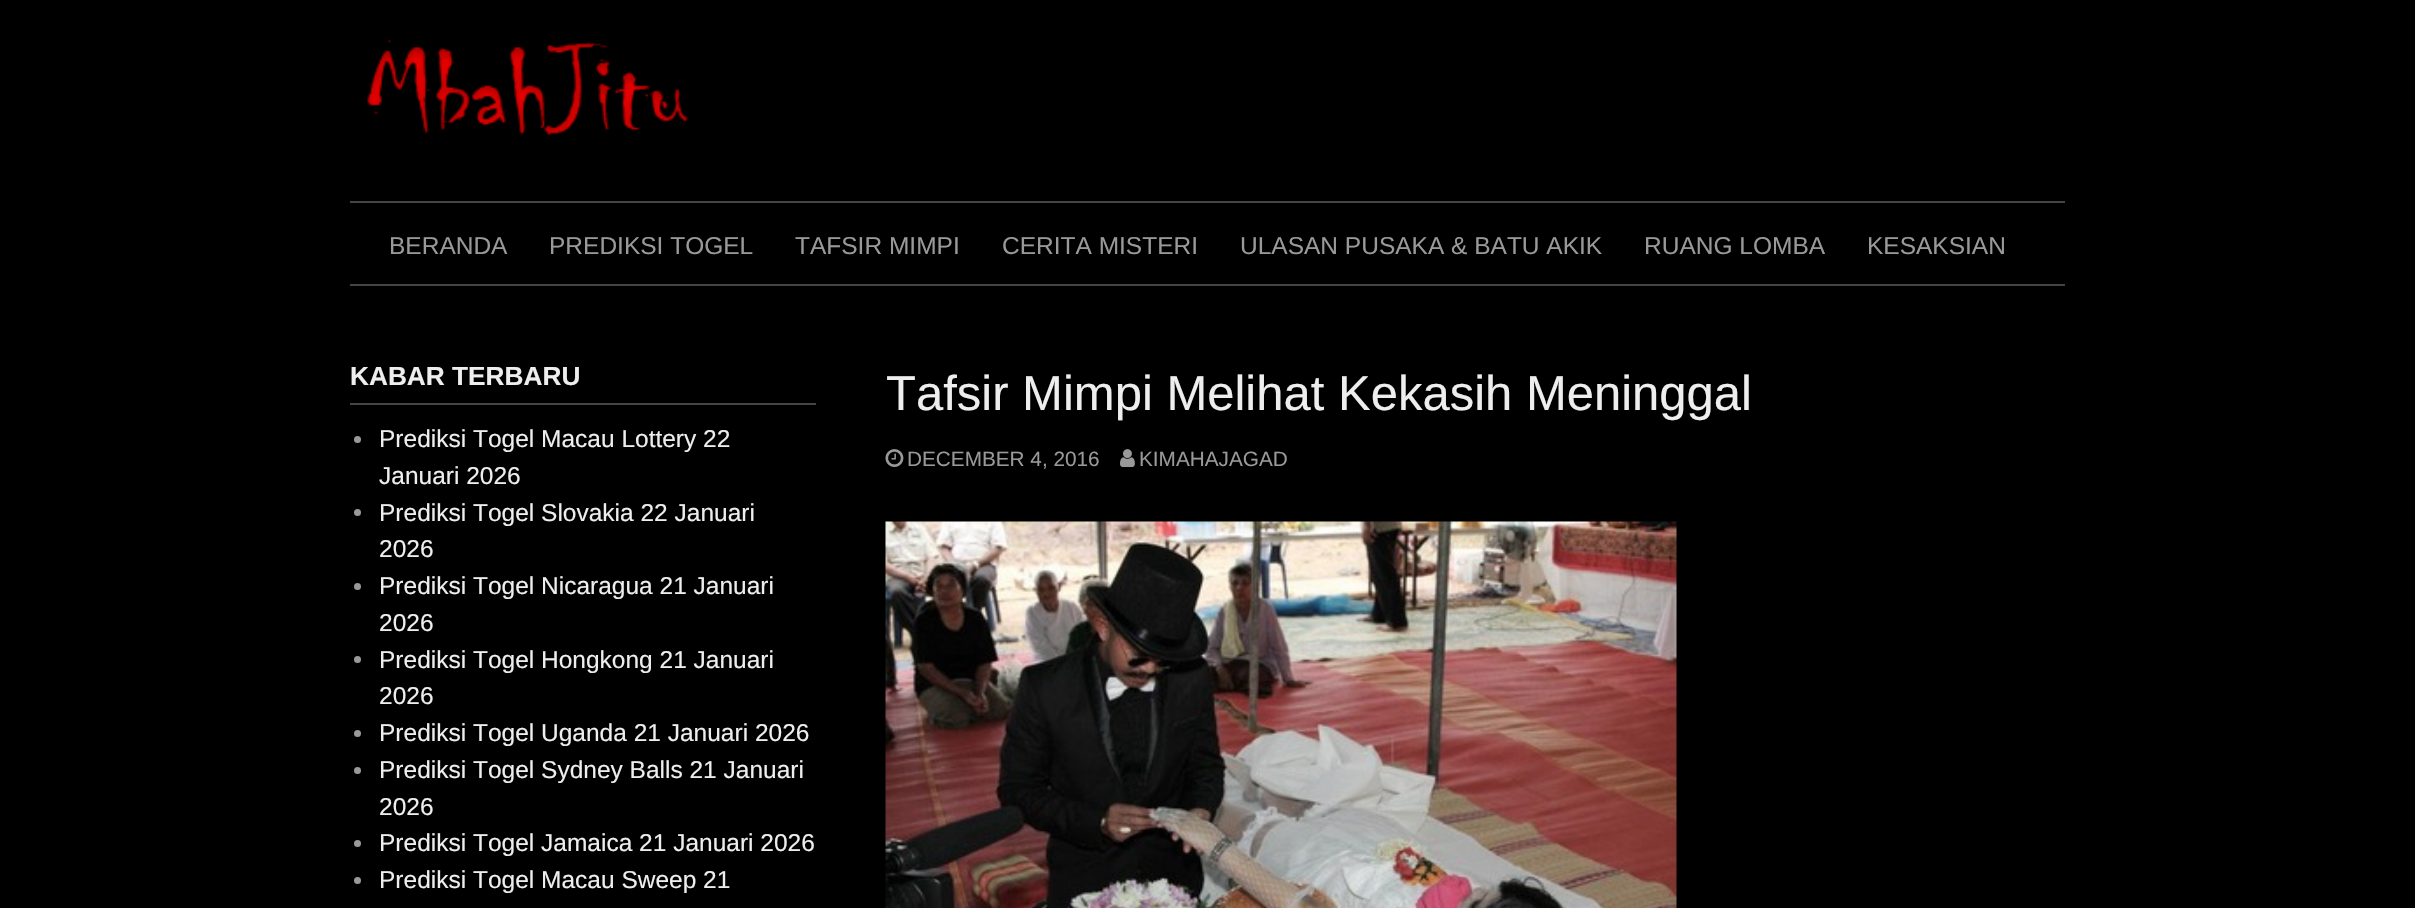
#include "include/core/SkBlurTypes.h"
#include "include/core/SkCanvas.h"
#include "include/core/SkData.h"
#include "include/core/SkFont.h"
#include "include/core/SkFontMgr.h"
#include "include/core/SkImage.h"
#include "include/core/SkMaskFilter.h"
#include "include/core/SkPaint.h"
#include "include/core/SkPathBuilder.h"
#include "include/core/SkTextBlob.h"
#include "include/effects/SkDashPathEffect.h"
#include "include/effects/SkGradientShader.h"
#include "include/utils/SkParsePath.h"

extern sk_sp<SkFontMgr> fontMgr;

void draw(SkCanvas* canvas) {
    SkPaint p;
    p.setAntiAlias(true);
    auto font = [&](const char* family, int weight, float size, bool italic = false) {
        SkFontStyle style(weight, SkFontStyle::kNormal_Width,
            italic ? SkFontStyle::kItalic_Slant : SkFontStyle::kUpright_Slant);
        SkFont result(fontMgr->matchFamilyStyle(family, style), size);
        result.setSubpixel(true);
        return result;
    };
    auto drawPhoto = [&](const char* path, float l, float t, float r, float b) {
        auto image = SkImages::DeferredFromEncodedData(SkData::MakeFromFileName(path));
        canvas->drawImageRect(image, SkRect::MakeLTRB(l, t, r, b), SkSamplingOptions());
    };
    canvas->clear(0xFF000000);
    drawPhoto("media/1.png", 367, 39, 689, 136);
    p.setColor(0xFF444444);
    canvas->drawRect(SkRect::MakeLTRB(350, 201, 2065, 203), p);
    canvas->drawRect(SkRect::MakeLTRB(350, 284, 2065, 286), p);
    auto font1 = font("Liberation Sans", 400, 24.5f);
    p.setColor(0xFF999999);
    {
        const struct { const char* s; float x, y; } items[] = {
            {"BERANDA", 389, 254},
            {"PREDIKSI TOGEL", 549, 254},
            {"TAFSIR MIMPI", 795, 254},
            {"CERITA MISTERI", 1002, 254},
            {"ULASAN PUSAKA & BATU AKIK", 1240, 254},
            {"RUANG LOMBA", 1644, 254},
            {"KESAKSIAN", 1867, 254},
        };
        for (auto [s, x, y] : items) {
            canvas->drawString(s, x, y, font1, p);
        }
    }
    p.setColor(0xFF444444);
    canvas->drawRect(SkRect::MakeLTRB(350, 403, 816, 405), p);
    auto font2 = font("Liberation Sans", 700, 26.25f);
    p.setColor(0xFFEEEEEE);
    canvas->drawString("KABAR TERBARU", 350, 385, font2, p);
    p.setColor(0xFF999999);
    canvas->drawCircle(357.5f, 439.5f, 3.5f, p);
    p.setColor(0xFFEEEEEE);
    canvas->drawString("Prediksi Togel Macau Lottery 22", 379, 447, font1, p);
    canvas->drawString("Januari 2026", 379, 484, font1, p);
    p.setColor(0xFF999999);
    canvas->drawCircle(357.5f, 512.5f, 3.5f, p);
    p.setColor(0xFFEEEEEE);
    canvas->drawString("Prediksi Togel Slovakia 22 Januari", 379, 521, font1, p);
    canvas->drawString("2026", 379, 557, font1, p);
    p.setColor(0xFF999999);
    canvas->drawCircle(357.5f, 586.5f, 3.5f, p);
    p.setColor(0xFFEEEEEE);
    canvas->drawString("Prediksi Togel Nicaragua 21 Januari", 379, 594, font1, p);
    canvas->drawString("2026", 379, 631, font1, p);
    p.setColor(0xFF999999);
    canvas->drawCircle(357.5f, 659.5f, 3.5f, p);
    p.setColor(0xFFEEEEEE);
    canvas->drawString("Prediksi Togel Hongkong 21 Januari", 379, 668, font1, p);
    canvas->drawString("2026", 379, 704, font1, p);
    p.setColor(0xFF999999);
    canvas->drawCircle(357.5f, 733.5f, 3.5f, p);
    p.setColor(0xFFEEEEEE);
    canvas->drawString("Prediksi Togel Uganda 21 Januari 2026", 379, 741, font1, p);
    p.setColor(0xFF999999);
    canvas->drawCircle(357.5f, 770.5f, 3.5f, p);
    p.setColor(0xFFEEEEEE);
    canvas->drawString("Prediksi Togel Sydney Balls 21 Januari", 379, 778, font1, p);
    canvas->drawString("2026", 379, 815, font1, p);
    p.setColor(0xFF999999);
    canvas->drawCircle(357.5f, 843.5f, 3.5f, p);
    p.setColor(0xFFEEEEEE);
    canvas->drawString("Prediksi Togel Jamaica 21 Januari 2026", 379, 851, font1, p);
    p.setColor(0xFF999999);
    canvas->drawCircle(357.5f, 880.5f, 3.5f, p);
    p.setColor(0xFFEEEEEE);
    canvas->drawString("Prediksi Togel Macau Sweep 21", 379, 888, font1, p);
    auto font3 = font("Liberation Sans", 400, 49);
    canvas->drawString("Tafsir Mimpi Melihat Kekasih Meninggal", 886, 410, font3, p);
    drawPhoto("media/2.png", 885, 449, 904, 467);
    auto font4 = font("Liberation Sans", 400, 20.75f);
    p.setColor(0xFF999999);
    canvas->drawString("DECEMBER 4, 2016", 907, 466, font4, p);
    drawPhoto("media/3.png", 1120, 449, 1135, 467);
    canvas->drawString("KIMAHAJAGAD", 1139, 466, font4, p);
    drawPhoto("media/4.png", 885, 521, 1677, 908);
}
